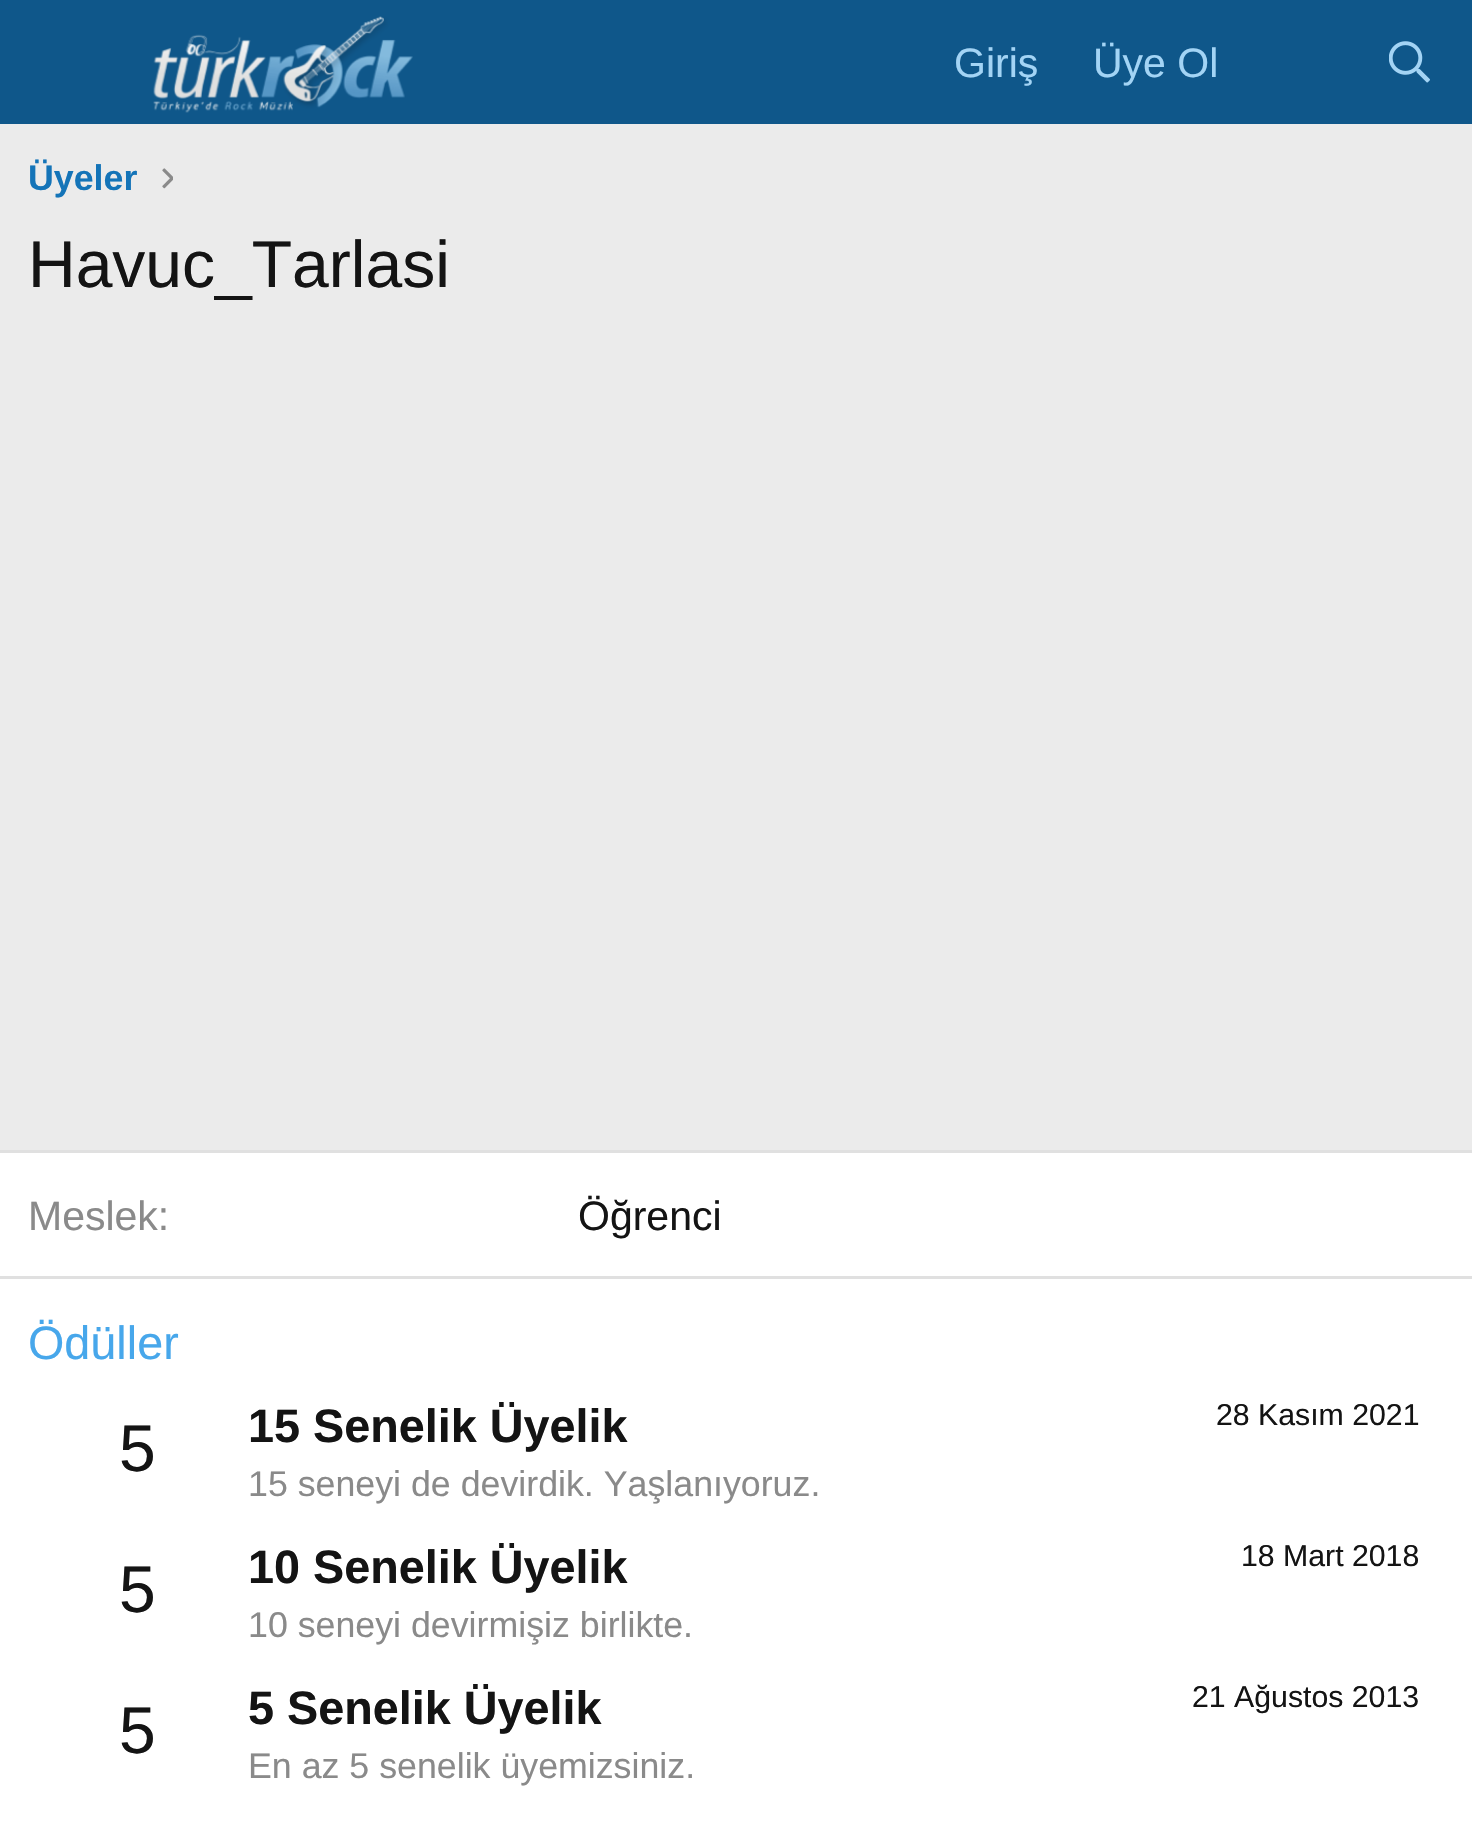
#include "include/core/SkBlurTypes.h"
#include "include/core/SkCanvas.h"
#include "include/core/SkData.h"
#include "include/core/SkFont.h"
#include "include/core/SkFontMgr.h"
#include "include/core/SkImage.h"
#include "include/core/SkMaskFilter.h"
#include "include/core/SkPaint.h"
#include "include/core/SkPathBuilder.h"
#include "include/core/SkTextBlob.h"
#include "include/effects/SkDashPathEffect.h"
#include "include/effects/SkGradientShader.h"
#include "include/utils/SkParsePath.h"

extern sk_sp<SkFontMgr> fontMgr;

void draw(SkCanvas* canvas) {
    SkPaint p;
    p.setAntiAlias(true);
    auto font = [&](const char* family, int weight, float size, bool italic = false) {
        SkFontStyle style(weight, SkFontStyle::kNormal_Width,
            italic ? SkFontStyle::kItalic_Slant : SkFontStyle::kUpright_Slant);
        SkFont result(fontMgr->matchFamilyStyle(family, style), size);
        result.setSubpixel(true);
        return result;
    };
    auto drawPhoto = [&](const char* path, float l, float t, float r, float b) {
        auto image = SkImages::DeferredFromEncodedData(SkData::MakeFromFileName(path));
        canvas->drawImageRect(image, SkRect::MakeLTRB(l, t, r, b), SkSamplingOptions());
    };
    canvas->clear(0xFFEBEBEB);
    p.setColor(0xFF0F578A);
    canvas->drawRect(SkRect::MakeLTRB(0, 0, 1472, 124), p);
    drawPhoto("media/1.png", 153, 16, 413, 113);
    auto font1 = font("Liberation Sans", 400, 41);
    p.setColor(0xFFA3D4F5);
    canvas->drawString("Giriş", 954, 77, font1, p);
    canvas->drawString("Üye Ol", 1093, 77, font1, p);
    drawPhoto("media/2.png", 1389, 41, 1430, 83);
    auto font2 = font("Liberation Sans", 700, 35.75f);
    p.setColor(0xFF1474B8);
    canvas->drawString("Üyeler", 28, 190, font2, p);
    drawPhoto("media/3.png", 162, 168, 173, 189);
    auto font3 = font("Liberation Sans", 400, 66);
    p.setColor(0xFF141414);
    canvas->drawString("Havuc_Tarlasi", 28, 287, font3, p);
    p.setColor(0xFFFFFFFF);
    canvas->drawRect(SkRect::MakeLTRB(0, 1153, 1472, 1841), p);
    p.setColor(0xFFE0E0E0);
    canvas->drawRect(SkRect::MakeLTRB(0, 1150, 1472, 1153), p);
    p.setColor(0xFF8A8A8A);
    canvas->drawString("Meslek:", 28, 1230, font1, p);
    p.setColor(0xFF141414);
    canvas->drawString("Öğrenci", 578, 1230, font1, p);
    p.setColor(0xFFE0E0E0);
    canvas->drawRect(SkRect::MakeLTRB(0, 1276, 1472, 1279), p);
    auto font4 = font("Liberation Sans", 400, 46.75f);
    p.setColor(0xFF47A7EB);
    canvas->drawString("Ödüller", 28, 1359, font4, p);
    p.setColor(0xFF141414);
    canvas->drawString("5", 119, 1471, font3, p);
    auto font5 = font("Liberation Sans", 700, 46.75f);
    canvas->drawString("15 Senelik Üyelik", 248, 1442, font5, p);
    auto font6 = font("Liberation Sans", 400, 30.25f);
    canvas->drawString("28 Kasım 2021", 1216, 1425, font6, p);
    auto font7 = font("Liberation Sans", 400, 35.75f);
    p.setColor(0xFF8A8A8A);
    canvas->drawString("15 seneyi de devirdik. Yaşlanıyoruz.", 248, 1496, font7, p);
    p.setColor(0xFF141414);
    canvas->drawString("5", 119, 1612, font3, p);
    canvas->drawString("10 Senelik Üyelik", 248, 1583, font5, p);
    canvas->drawString("18 Mart 2018", 1241, 1566, font6, p);
    p.setColor(0xFF8A8A8A);
    canvas->drawString("10 seneyi devirmişiz birlikte.", 248, 1637, font7, p);
    p.setColor(0xFF141414);
    canvas->drawString("5", 119, 1753, font3, p);
    canvas->drawString("5 Senelik Üyelik", 248, 1724, font5, p);
    canvas->drawString("21 Ağustos 2013", 1192, 1707, font6, p);
    p.setColor(0xFF8A8A8A);
    canvas->drawString("En az 5 senelik üyemizsiniz.", 248, 1778, font7, p);
}
